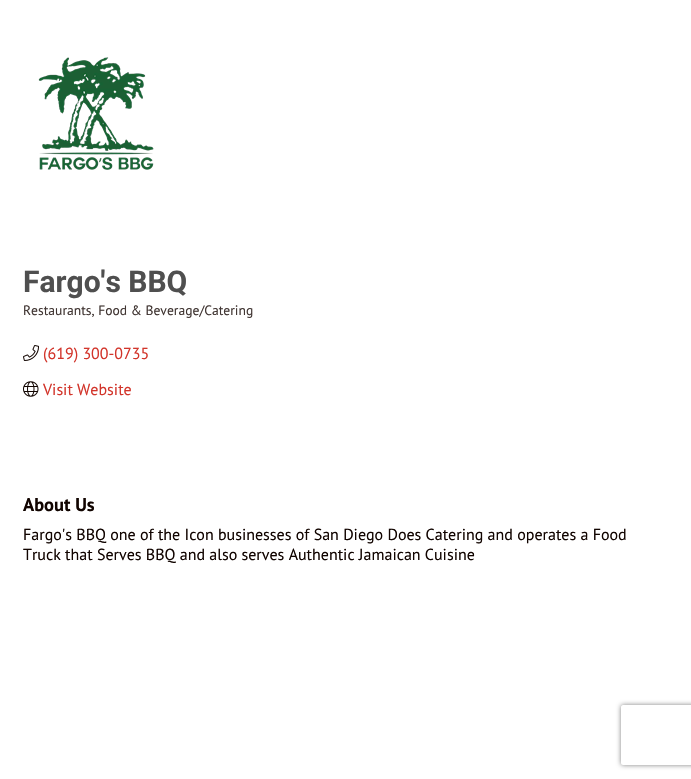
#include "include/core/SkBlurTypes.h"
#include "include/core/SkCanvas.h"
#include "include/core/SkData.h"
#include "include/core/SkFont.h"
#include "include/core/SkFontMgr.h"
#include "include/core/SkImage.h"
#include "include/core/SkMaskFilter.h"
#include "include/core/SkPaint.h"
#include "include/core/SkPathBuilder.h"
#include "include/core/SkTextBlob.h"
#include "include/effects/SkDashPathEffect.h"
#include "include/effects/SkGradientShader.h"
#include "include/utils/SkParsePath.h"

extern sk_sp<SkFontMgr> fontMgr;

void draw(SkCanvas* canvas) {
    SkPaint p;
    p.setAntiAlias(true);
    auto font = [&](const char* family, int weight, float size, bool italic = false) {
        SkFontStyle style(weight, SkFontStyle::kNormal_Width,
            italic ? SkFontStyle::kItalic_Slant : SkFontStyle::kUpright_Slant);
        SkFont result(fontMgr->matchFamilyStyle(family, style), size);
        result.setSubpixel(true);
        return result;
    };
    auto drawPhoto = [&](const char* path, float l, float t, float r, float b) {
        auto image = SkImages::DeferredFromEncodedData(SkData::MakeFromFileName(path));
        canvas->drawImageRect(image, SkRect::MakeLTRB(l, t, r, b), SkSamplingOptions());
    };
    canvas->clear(0xFFFFFFFF);
    drawPhoto("media/1.png", 38, 57, 154, 170);
    auto font1 = font("Roboto", 700, 30);
    p.setColor(0xFF4F4F4F);
    canvas->drawString("Fargo's BBQ", 23, 292, font1, p);
    auto font2 = font("PT Sans", 400, 13.6f);
    p.setColor(0xFF413633);
    canvas->drawString("Restaurants, Food & Beverage/Catering", 23, 315, font2, p);
    drawPhoto("media/2.png", 23, 345, 39, 361);
    auto font3 = font("PT Sans", 400, 16);
    p.setColor(0xFFD2342A);
    canvas->drawString("(619) 300-0735", 43, 359, font3, p);
    drawPhoto("media/3.png", 23, 381, 39, 397);
    canvas->drawString("Visit Website", 43, 395, font3, p);
    auto font4 = font("PT Sans", 700, 18.5f);
    p.setColor(0xFF110400);
    canvas->drawString("About Us", 23, 511, font4, p);
    canvas->drawString("Fargo's BBQ one of the Icon businesses of San Diego Does Catering and operates a Food", 23, 540, font3, p);
    canvas->drawString("Truck that Serves BBQ and also serves Authentic Jamaican Cuisine", 23, 560, font3, p);
    canvas->save();
    canvas->clipPath(SkPathBuilder(SkPathFillType::kEvenOdd).moveTo(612, 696).lineTo(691, 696).lineTo(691, 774).lineTo(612, 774).close().moveTo(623, 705).lineTo(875, 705).cubicTo(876, 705, 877, 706, 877, 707).lineTo(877, 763).cubicTo(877, 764, 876, 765, 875, 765).lineTo(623, 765).cubicTo(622, 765, 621, 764, 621, 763).lineTo(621, 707).cubicTo(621, 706, 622, 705, 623, 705).close().detach(), true);
    p.setColor(0xFF808080);
    p.setMaskFilter(SkMaskFilter::MakeBlur(kNormal_SkBlurStyle, 2.5f));
    canvas->drawRoundRect(SkRect::MakeLTRB(621, 705, 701, 765), 2, 2, p);
    p.setMaskFilter(nullptr);
    canvas->restore();
}
